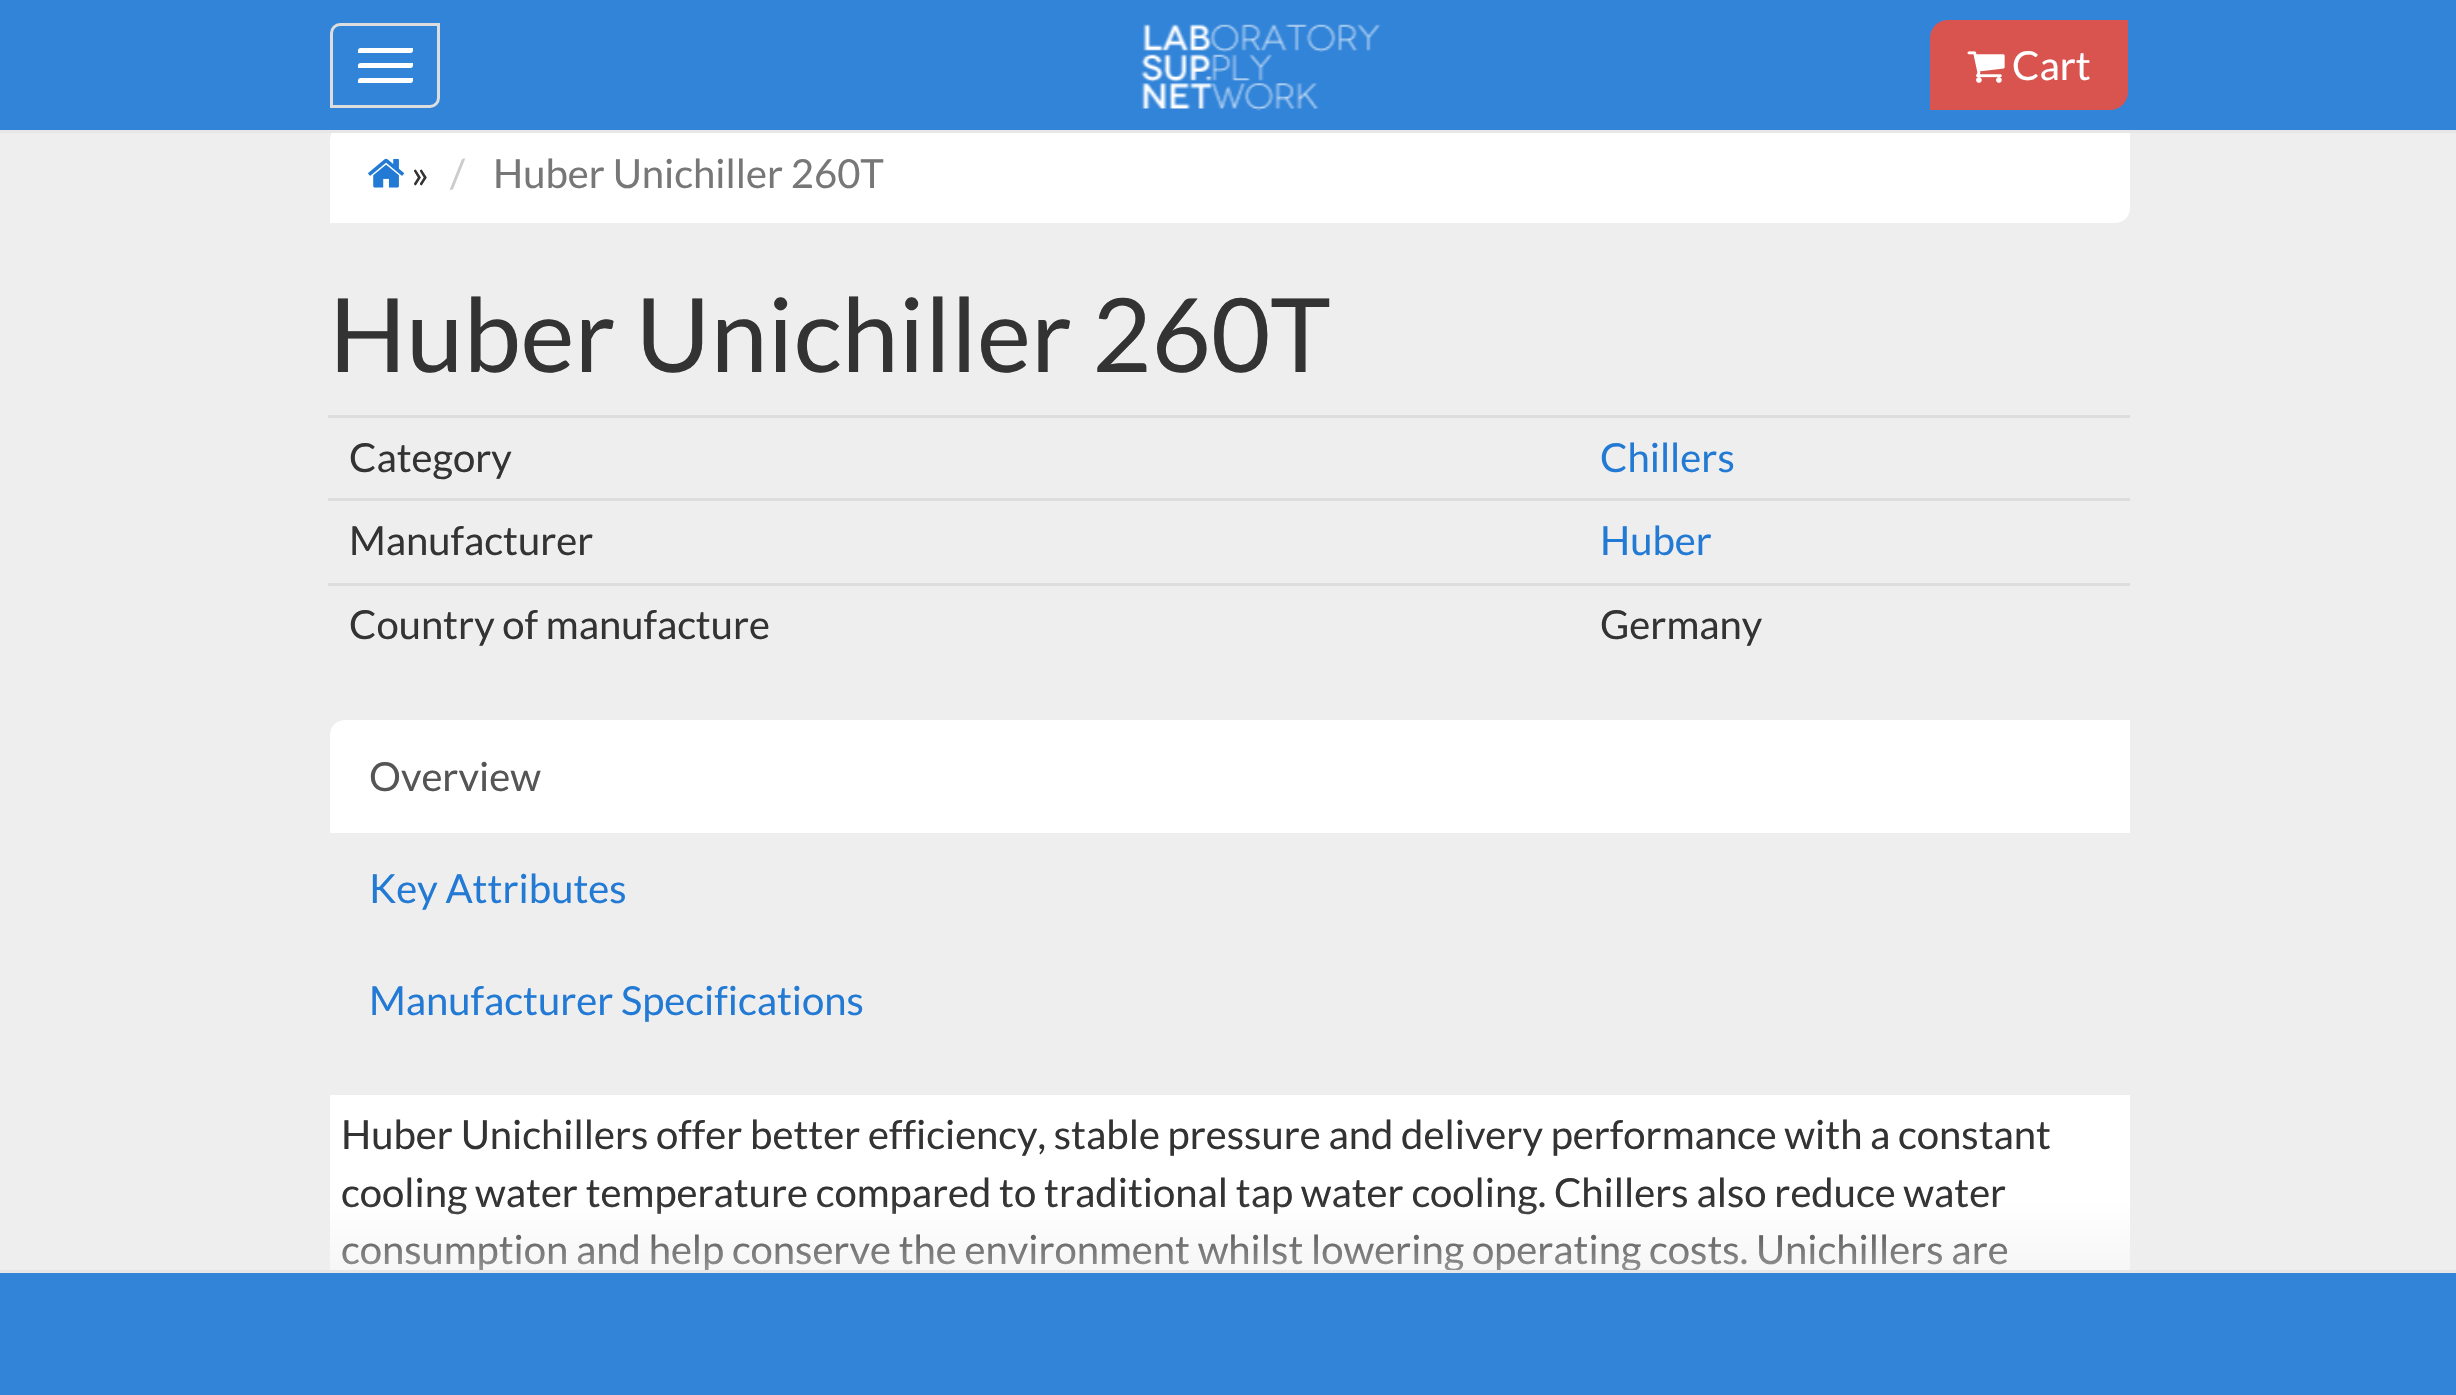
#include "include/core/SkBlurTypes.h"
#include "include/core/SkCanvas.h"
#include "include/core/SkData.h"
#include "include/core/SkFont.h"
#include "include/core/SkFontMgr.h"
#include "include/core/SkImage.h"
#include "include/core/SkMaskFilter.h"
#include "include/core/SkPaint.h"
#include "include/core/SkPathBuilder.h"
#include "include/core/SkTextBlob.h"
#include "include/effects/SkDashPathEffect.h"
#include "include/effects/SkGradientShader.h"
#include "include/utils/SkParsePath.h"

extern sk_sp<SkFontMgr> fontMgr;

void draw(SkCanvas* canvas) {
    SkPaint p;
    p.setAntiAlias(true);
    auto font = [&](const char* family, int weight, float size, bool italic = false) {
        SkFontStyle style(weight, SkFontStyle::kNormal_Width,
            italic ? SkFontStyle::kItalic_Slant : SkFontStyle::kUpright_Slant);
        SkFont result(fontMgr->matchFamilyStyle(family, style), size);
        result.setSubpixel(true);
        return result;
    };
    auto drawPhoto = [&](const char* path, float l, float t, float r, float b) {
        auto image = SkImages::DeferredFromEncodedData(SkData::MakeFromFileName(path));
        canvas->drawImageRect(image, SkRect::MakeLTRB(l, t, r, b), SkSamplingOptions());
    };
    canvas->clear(0xFFEEEEEE);
    p.setColor(0xFFFFFFFF);
    canvas->drawPath(SkPathBuilder().moveTo(345, 125).lineTo(2130, 125).lineTo(2130, 208).cubicTo(2130, 216.5f, 2123.5f, 223, 2115, 223).lineTo(330, 223).lineTo(330, 140).cubicTo(330, 131.5f, 336.5f, 125, 345, 125).close().detach(), p);
    p.setColor(0xFF3284D9);
    canvas->drawRect(SkRect::MakeLTRB(0, 0, 2456, 130), p);
    p.setColor(0xFFE7E7E7);
    canvas->drawRect(SkRect::MakeLTRB(0, 130, 2456, 133), p);
    p.setStyle(SkPaint::kStroke_Style);
    p.setStrokeWidth(3);
    p.setColor(0xFFDDDDDD);
    canvas->drawPath(SkPathBuilder().moveTo(340, 24.5f).lineTo(438.5f, 24.5f).lineTo(438.5f, 98).cubicTo(438.5f, 102.5f, 434.5f, 106.5f, 430, 106.5f).lineTo(331.5f, 106.5f).lineTo(331.5f, 33).cubicTo(331.5f, 28.5f, 335.5f, 24.5f, 340, 24.5f).close().detach(), p);
    p.setStyle(SkPaint::kFill_Style);
    p.setColor(0xFFFFFFFF);
    canvas->drawPath(SkPathBuilder().moveTo(360.5f, 48).lineTo(413, 48).lineTo(413, 50.5f).cubicTo(413, 52, 412, 53, 410.5f, 53).lineTo(358, 53).lineTo(358, 50.5f).cubicTo(358, 49, 359, 48, 360.5f, 48).close().detach(), p);
    canvas->drawPath(SkPathBuilder().moveTo(360.5f, 63).lineTo(413, 63).lineTo(413, 65.5f).cubicTo(413, 67, 412, 68, 410.5f, 68).lineTo(358, 68).lineTo(358, 65.5f).cubicTo(358, 64, 359, 63, 360.5f, 63).close().detach(), p);
    canvas->drawPath(SkPathBuilder().moveTo(360.5f, 78).lineTo(413, 78).lineTo(413, 80.5f).cubicTo(413, 82, 412, 83, 410.5f, 83).lineTo(358, 83).lineTo(358, 80.5f).cubicTo(358, 79, 359, 78, 360.5f, 78).close().detach(), p);
    drawPhoto("media/1.png", 1141, 24, 1381, 111);
    p.setColor(0xFFD9534F);
    canvas->drawPath(SkPathBuilder().moveTo(1948, 20).lineTo(2128, 20).lineTo(2128, 92).cubicTo(2128, 102, 2120, 110, 2110, 110).lineTo(1930, 110).lineTo(1930, 38).cubicTo(1930, 28, 1938, 20, 1948, 20).close().detach(), p);
    drawPhoto("media/2.png", 1967, 51, 2005, 83);
    auto font1 = font("Lato", 400, 40);
    p.setColor(0xFFFFFFFF);
    canvas->drawString("Cart", 2012, 80, font1, p);
    drawPhoto("media/3.png", 368, 158, 404, 188);
    p.setColor(0xFF333333);
    canvas->drawString("»", 411, 188, font1, p);
    p.setColor(0xFFCCCCCC);
    canvas->drawString("/", 450, 188, font1, p);
    p.setColor(0xFF777777);
    canvas->drawString("Huber Unichiller 260T", 493, 188, font1, p);
    auto font2 = font("Lato", 400, 102.5f);
    p.setColor(0xFF333333);
    canvas->drawString("Huber Unichiller 260T", 329, 372, font2, p);
    canvas->drawString("Category", 349, 472, font1, p);
    p.setColor(0xFFDDDDDD);
    canvas->drawRect(SkRect::MakeLTRB(328, 415, 2130, 418), p);
    p.setColor(0xFF237AD4);
    canvas->drawString("Chillers", 1600, 472, font1, p);
    p.setColor(0xFF333333);
    canvas->drawString("Manufacturer", 349, 555, font1, p);
    p.setColor(0xFFDDDDDD);
    canvas->drawRect(SkRect::MakeLTRB(328, 498, 2130, 501), p);
    p.setColor(0xFF237AD4);
    canvas->drawString("Huber", 1600, 555, font1, p);
    p.setColor(0xFF333333);
    canvas->drawString("Country of manufacture", 349, 639, font1, p);
    p.setColor(0xFFDDDDDD);
    canvas->drawRect(SkRect::MakeLTRB(328, 583, 2130, 586), p);
    p.setColor(0xFF333333);
    canvas->drawString("Germany", 1600, 639, font1, p);
    p.setColor(0xFFFFFFFF);
    canvas->drawPath(SkPathBuilder().moveTo(345, 720).lineTo(2130, 720).lineTo(2130, 833).lineTo(330, 833).lineTo(330, 735).cubicTo(330, 726.5f, 336.5f, 720, 345, 720).close().detach(), p);
    p.setColor(0xFF555555);
    canvas->drawString("Overview", 369, 791, font1, p);
    p.setColor(0xFF237AD4);
    canvas->drawString("Key Attributes", 369, 903, font1, p);
    canvas->drawString("Manufacturer Specifications", 369, 1015, font1, p);
    p.setColor(0xFFFFFFFF);
    canvas->drawRect(SkRect::MakeLTRB(330, 1095, 2130, 1270), p);
    p.setColor(0xFF333333);
    {
        const struct { const char* s; float x, y; } items[] = {
            {"Huber Unichillers offer better efficiency, stable pressure and delivery performance with a constant", 341, 1149},
            {"cooling water temperature compared to traditional tap water cooling. Chillers also reduce water", 341, 1207},
            {"consumption and help conserve the environment whilst lowering operating costs. Unichillers are", 341, 1264},
        };
        for (auto [s, x, y] : items) {
            canvas->drawString(s, x, y, font1, p);
        }
    }
    {
        const SkColor colors[] = {0x00EEEEEE, 0xFFEEEEEE, 0xFFEEEEEE};
        const float stops[] = {0, 0.75f, 1};
        const SkPoint ends[] = {{1230, 1200}, {1230, 1383}};
        p.setShader(SkGradientShader::MakeLinear(ends, colors, stops, 3, SkTileMode::kClamp));
        p.setAlpha(255);
    }
    canvas->drawRect(SkRect::MakeLTRB(330, 1203, 2130, 1270), p);
    p.setShader(nullptr);
    p.setColor(0xFF3284D9);
    canvas->drawRect(SkRect::MakeLTRB(0, 1273, 2456, 1395), p);
    p.setColor(0xFFE7E7E7);
    canvas->drawRect(SkRect::MakeLTRB(0, 1270, 2456, 1273), p);
}
